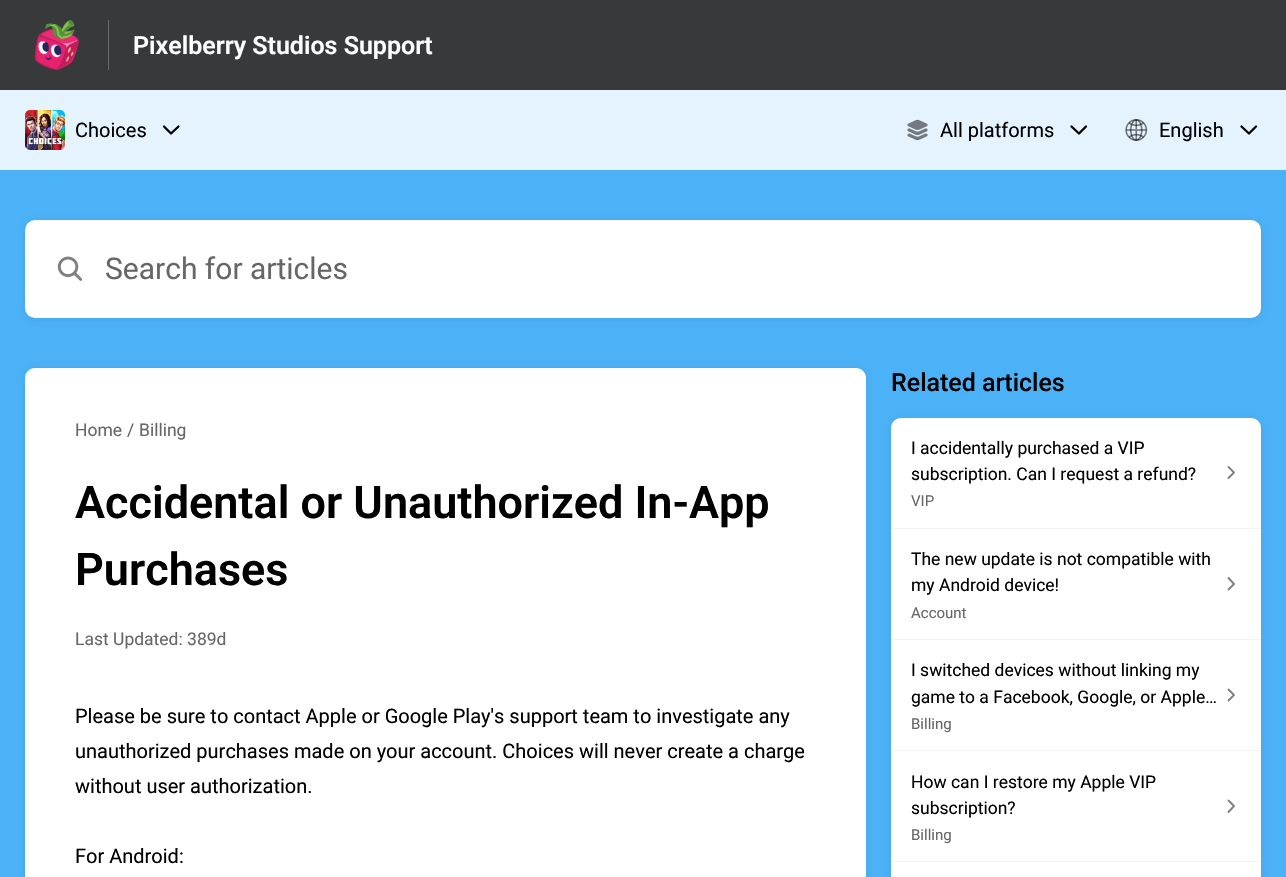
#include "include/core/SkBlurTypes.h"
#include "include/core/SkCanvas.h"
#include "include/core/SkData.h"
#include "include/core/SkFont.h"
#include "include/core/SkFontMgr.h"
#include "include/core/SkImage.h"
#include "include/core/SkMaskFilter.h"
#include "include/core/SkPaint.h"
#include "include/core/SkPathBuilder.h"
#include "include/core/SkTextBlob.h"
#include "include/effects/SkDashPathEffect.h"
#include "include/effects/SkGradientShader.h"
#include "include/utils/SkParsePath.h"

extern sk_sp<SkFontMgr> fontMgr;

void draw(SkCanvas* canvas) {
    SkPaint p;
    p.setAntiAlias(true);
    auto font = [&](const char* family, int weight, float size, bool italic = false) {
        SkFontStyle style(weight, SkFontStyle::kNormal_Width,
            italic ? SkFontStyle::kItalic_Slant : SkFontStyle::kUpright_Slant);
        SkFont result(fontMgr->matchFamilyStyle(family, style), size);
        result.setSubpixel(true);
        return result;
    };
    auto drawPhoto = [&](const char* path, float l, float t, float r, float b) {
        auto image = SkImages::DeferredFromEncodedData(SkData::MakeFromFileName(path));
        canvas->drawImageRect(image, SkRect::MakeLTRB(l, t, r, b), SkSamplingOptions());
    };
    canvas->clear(0xFFE4F3FE);
    p.setColor(0xFF37393A);
    canvas->drawRect(SkRect::MakeLTRB(0, 0, 1286, 90), p);
    p.setColor(0xFF696B6B);
    canvas->drawRect(SkRect::MakeLTRB(108, 20, 109, 70), p);
    drawPhoto("media/1.png", 34, 20, 80, 70);
    auto font1 = font("Roboto", 600, 25);
    p.setColor(0xFFFFFFFF);
    canvas->drawString("Pixelberry Studios Support", 133, 54, font1, p);
    drawPhoto("media/2.png", 25, 110, 65, 150);
    auto font2 = font("Roboto", 400, 20);
    p.setColor(0xFF000000);
    canvas->drawString("Choices", 75, 137, font2, p);
    p.setStyle(SkPaint::kStroke_Style);
    p.setStrokeWidth(2.3f);
    p.setStrokeCap(SkPaint::kRound_Cap);
    p.setStrokeJoin(SkPaint::kRound_Join);
    canvas->drawPath(SkPathBuilder().moveTo(164, 126.5f).lineTo(171, 133.5f).lineTo(178.5f, 126.5f).detach(), p);
    drawPhoto("media/3.png", 907, 119, 928, 141);
    p.setStyle(SkPaint::kFill_Style);
    canvas->drawString("All platforms", 940, 137, font2, p);
    p.setStyle(SkPaint::kStroke_Style);
    canvas->drawPath(SkPathBuilder().moveTo(1071.5f, 126.5f).lineTo(1079, 133.5f).lineTo(1086, 126.5f).detach(), p);
    drawPhoto("media/4.png", 1125, 119, 1148, 141);
    p.setStyle(SkPaint::kFill_Style);
    canvas->drawString("English", 1159, 137, font2, p);
    p.setStyle(SkPaint::kStroke_Style);
    canvas->drawPath(SkPathBuilder().moveTo(1241.5f, 126.5f).lineTo(1249, 133.5f).lineTo(1256, 126.5f).detach(), p);
    p.setStyle(SkPaint::kFill_Style);
    p.setColor(0xFF4CB2F8);
    canvas->drawRect(SkRect::MakeLTRB(0, 170, 1286, 877), p);
    p.setColor(0x14000000);
    p.setMaskFilter(SkMaskFilter::MakeBlur(kNormal_SkBlurStyle, 5));
    canvas->drawRoundRect(SkRect::MakeLTRB(25, 221, 1261, 319), 10, 10, p);
    p.setMaskFilter(nullptr);
    p.setColor(0xFFFFFFFF);
    canvas->drawRoundRect(SkRect::MakeLTRB(25, 220, 1261, 318), 10, 10, p);
    drawPhoto("media/5.png", 57, 256, 83, 281);
    auto font3 = font("Roboto", 400, 30);
    p.setColor(0xFF666666);
    canvas->drawString("Search for articles", 105, 279, font3, p);
    p.setColor(0x14000000);
    p.setMaskFilter(SkMaskFilter::MakeBlur(kNormal_SkBlurStyle, 5));
    canvas->drawRoundRect(SkRect::MakeLTRB(25, 369, 866, 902), 10, 10, p);
    p.setMaskFilter(nullptr);
    p.setColor(0xFFFFFFFF);
    canvas->drawPath(SkPathBuilder().moveTo(35, 368).lineTo(856, 368).cubicTo(861.5f, 368, 866, 372.5f, 866, 378).lineTo(866, 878).lineTo(25, 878).lineTo(25, 378).cubicTo(25, 372.5f, 29.5f, 368, 35, 368).close().detach(), p);
    auto font4 = font("Roboto", 400, 17.5f);
    p.setColor(0xFF666666);
    {
        const struct { const char* s; float x, y; } items[] = {
            {"Home", 75, 436},
            {"/", 127, 436},
            {"Billing", 139, 436},
        };
        for (auto [s, x, y] : items) {
            canvas->drawString(s, x, y, font4, p);
        }
    }
    auto font5 = font("Roboto", 600, 45);
    p.setColor(0xFF000000);
    canvas->drawString("Accidental or Unauthorized In-App", 75, 518, font5, p);
    canvas->drawString("Purchases", 75, 585, font5, p);
    p.setColor(0xFF666666);
    canvas->drawString("Last Updated: 389d", 75, 645, font4, p);
    p.setColor(0xFF000000);
    {
        const struct { const char* s; float x, y; } items[] = {
            {"Please be sure to contact Apple or Google Play's support team to investigate any", 75, 723},
            {"unauthorized purchases made on your account. Choices will never create a charge", 75, 758},
            {"without user authorization.", 75, 793},
            {"For Android:", 75, 863},
        };
        for (auto [s, x, y] : items) {
            canvas->drawString(s, x, y, font2, p);
        }
    }
    auto font6 = font("Roboto", 500, 25);
    canvas->drawString("Related articles", 891, 391, font6, p);
    p.setColor(0x14000000);
    p.setMaskFilter(SkMaskFilter::MakeBlur(kNormal_SkBlurStyle, 5));
    canvas->drawRoundRect(SkRect::MakeLTRB(891, 419, 1261, 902), 10, 10, p);
    p.setMaskFilter(nullptr);
    p.setColor(0xFFFFFFFF);
    canvas->drawPath(SkPathBuilder().moveTo(901, 418).lineTo(1251, 418).cubicTo(1256.5f, 418, 1261, 422.5f, 1261, 428).lineTo(1261, 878).lineTo(891, 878).lineTo(891, 428).cubicTo(891, 422.5f, 895.5f, 418, 901, 418).close().detach(), p);
    p.setColor(0xFFF2F2F2);
    canvas->drawRect(SkRect::MakeLTRB(891, 528, 1261, 529), p);
    p.setColor(0xFF000000);
    canvas->drawString("I accidentally purchased a VIP", 911, 454, font4, p);
    canvas->drawString("subscription. Can I request a refund?", 911, 480, font4, p);
    auto font7 = font("Roboto", 400, 15);
    p.setColor(0xFF666666);
    canvas->drawString("VIP", 911, 506, font7, p);
    p.setStyle(SkPaint::kStroke_Style);
    p.setStrokeWidth(1.9f);
    p.setColor(0xFF808080);
    canvas->drawPath(SkPathBuilder().moveTo(1228.5f, 467).lineTo(1234, 472.5f).lineTo(1228.5f, 478).detach(), p);
    p.setStyle(SkPaint::kFill_Style);
    p.setColor(0xFFF2F2F2);
    canvas->drawRect(SkRect::MakeLTRB(891, 639, 1261, 640), p);
    p.setColor(0xFF000000);
    canvas->drawString("The new update is not compatible with", 911, 565, font4, p);
    canvas->drawString("my Android device!", 911, 591, font4, p);
    p.setColor(0xFF666666);
    canvas->drawString("Account", 911, 618, font7, p);
    p.setStyle(SkPaint::kStroke_Style);
    p.setColor(0xFF808080);
    canvas->drawPath(SkPathBuilder().moveTo(1228.5f, 578).lineTo(1234, 584).lineTo(1228.5f, 589.5f).detach(), p);
    p.setStyle(SkPaint::kFill_Style);
    p.setColor(0xFFF2F2F2);
    canvas->drawRect(SkRect::MakeLTRB(891, 750, 1261, 751), p);
    p.setColor(0xFF000000);
    canvas->drawString("I switched devices without linking my", 911, 676, font4, p);
    canvas->drawString("game to a Facebook, Google, or Apple…", 911, 703, font4, p);
    p.setColor(0xFF666666);
    canvas->drawString("Billing", 911, 729, font7, p);
    p.setStyle(SkPaint::kStroke_Style);
    p.setColor(0xFF808080);
    canvas->drawPath(SkPathBuilder().moveTo(1228.5f, 689.5f).lineTo(1234, 695).lineTo(1228.5f, 700.5f).detach(), p);
    p.setStyle(SkPaint::kFill_Style);
    p.setColor(0xFFF2F2F2);
    canvas->drawRect(SkRect::MakeLTRB(891, 861, 1261, 862), p);
    p.setColor(0xFF000000);
    canvas->drawString("How can I restore my Apple VIP", 911, 788, font4, p);
    canvas->drawString("subscription?", 911, 814, font4, p);
    p.setColor(0xFF666666);
    canvas->drawString("Billing", 911, 840, font7, p);
    p.setStyle(SkPaint::kStroke_Style);
    p.setColor(0xFF808080);
    canvas->drawPath(SkPathBuilder().moveTo(1228.5f, 800.5f).lineTo(1234, 806).lineTo(1228.5f, 812).detach(), p);
}
